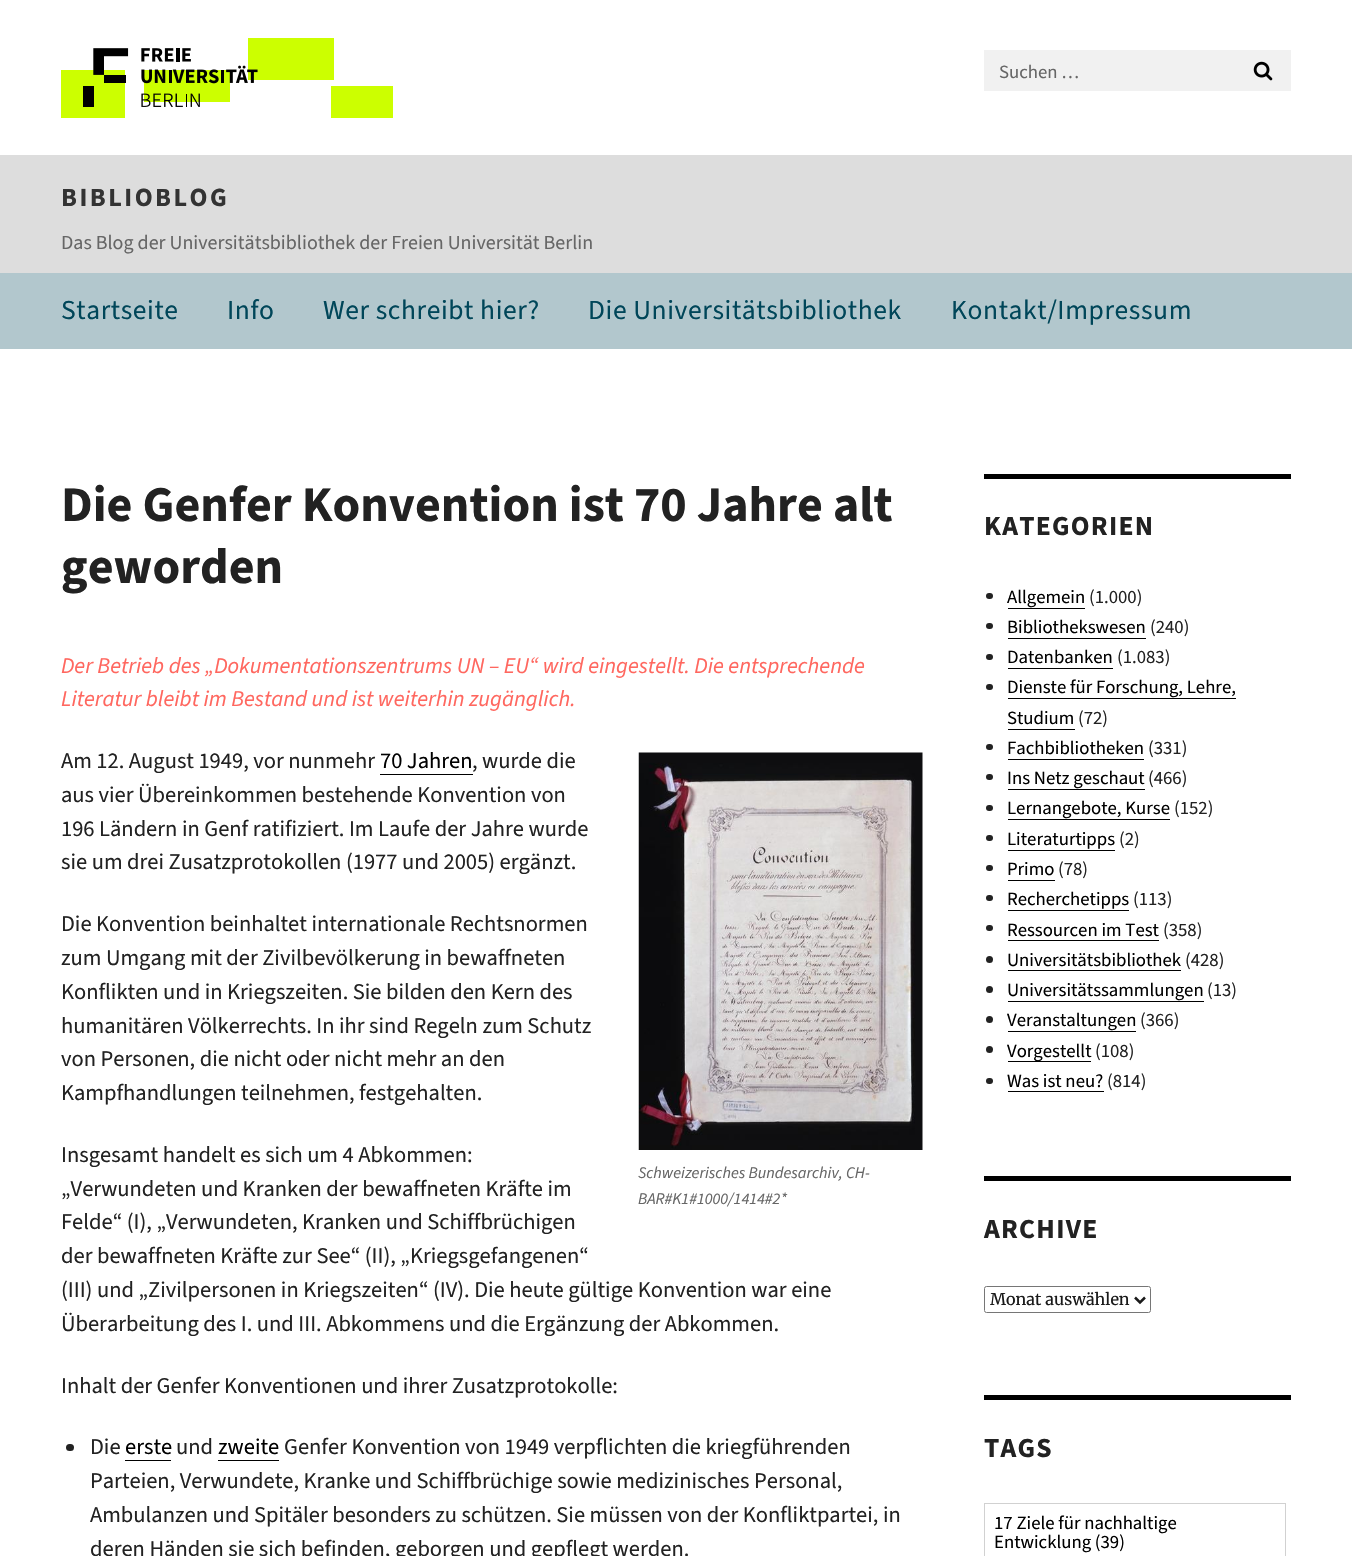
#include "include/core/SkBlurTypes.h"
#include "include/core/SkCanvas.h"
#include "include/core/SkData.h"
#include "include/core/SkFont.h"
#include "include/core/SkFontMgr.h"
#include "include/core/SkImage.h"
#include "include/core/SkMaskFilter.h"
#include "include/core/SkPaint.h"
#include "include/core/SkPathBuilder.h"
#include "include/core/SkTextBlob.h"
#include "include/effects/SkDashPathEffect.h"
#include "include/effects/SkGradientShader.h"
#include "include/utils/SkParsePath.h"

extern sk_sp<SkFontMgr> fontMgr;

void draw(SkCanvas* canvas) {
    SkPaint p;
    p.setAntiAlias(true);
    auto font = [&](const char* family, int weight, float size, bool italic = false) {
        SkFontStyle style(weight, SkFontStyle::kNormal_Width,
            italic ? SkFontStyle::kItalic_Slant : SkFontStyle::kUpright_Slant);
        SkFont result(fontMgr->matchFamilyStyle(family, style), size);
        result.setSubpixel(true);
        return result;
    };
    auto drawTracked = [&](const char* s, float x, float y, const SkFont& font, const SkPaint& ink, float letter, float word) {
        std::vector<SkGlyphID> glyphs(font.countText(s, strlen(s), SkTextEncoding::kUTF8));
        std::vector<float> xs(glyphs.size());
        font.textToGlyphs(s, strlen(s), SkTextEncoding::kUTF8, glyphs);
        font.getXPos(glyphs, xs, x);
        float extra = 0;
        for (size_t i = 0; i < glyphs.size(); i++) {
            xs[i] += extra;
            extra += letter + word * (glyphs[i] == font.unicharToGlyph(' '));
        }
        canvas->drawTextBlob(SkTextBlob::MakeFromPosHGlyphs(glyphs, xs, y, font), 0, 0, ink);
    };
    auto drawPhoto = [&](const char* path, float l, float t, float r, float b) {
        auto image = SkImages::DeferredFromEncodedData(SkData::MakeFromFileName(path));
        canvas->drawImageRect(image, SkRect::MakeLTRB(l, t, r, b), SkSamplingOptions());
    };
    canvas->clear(0xFFFFFFFF);
    drawPhoto("media/1.png", 61, 38, 393, 118);
    p.setColor(0xFFF1F1F1);
    canvas->drawRect(SkRect::MakeLTRB(984, 50, 1291, 91), p);
    auto font1 = font("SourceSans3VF", 400, 18.75f);
    p.setColor(0xFF666666);
    canvas->drawString("Suchen …", 999, 78, font1, p);
    drawPhoto("media/2.png", 1253, 61, 1273, 81);
    p.setColor(0xFFDDDDDD);
    canvas->drawRect(SkRect::MakeLTRB(0, 155, 1352, 273), p);
    auto font2 = font("SourceSans3VF", 700, 26.25f);
    p.setColor(0xFF333333);
    drawTracked("BIBLIOBLOG", 61, 206, font2, p, 2.5f, 0);
    auto font3 = font("SourceSans3VF", 400, 20);
    p.setColor(0xFF666666);
    canvas->drawString("Das Blog der Universitätsbibliothek der Freien Universität Berlin", 61, 249, font3, p);
    p.setColor(0xFFB2C7CD);
    canvas->drawRect(SkRect::MakeLTRB(0, 273, 1352, 349), p);
    auto font4 = font("SourceSans3VF", 400, 27.5f);
    p.setColor(0xFF004659);
    {
        const struct { const char* s; float x, y; } items[] = {
            {"Startseite", 61, 319},
            {"Info", 227, 319},
            {"Wer schreibt hier?", 323, 319},
            {"Die Universitätsbibliothek", 588, 319},
            {"Kontakt/Impressum", 951, 319},
        };
        for (auto [s, x, y] : items) {
            drawTracked(s, x, y, font4, p, 0.6f, 0);
        }
    }
    auto font5 = font("SourceSans3VF", 700, 50);
    p.setColor(0xFF222222);
    canvas->drawString("Die Genfer Konvention ist 70 Jahre alt", 61, 521, font5, p);
    canvas->drawString("geworden", 61, 583, font5, p);
    auto font6 = font("SourceSans3VF", 400, 22.5f, true);
    p.setColor(0xFFFF675F);
    canvas->drawString("Der Betrieb des „Dokumentationszentrums UN – EU“ wird eingestellt. Die entsprechende", 61, 673, font6, p);
    canvas->drawString("Literatur bleibt im Bestand und ist weiterhin zugänglich.", 61, 706, font6, p);
    auto font7 = font("SourceSans3VF", 400, 22.5f);
    p.setColor(0xFF222222);
    canvas->drawString("Am 12. August 1949, vor nunmehr", 61, 768, font7, p);
    p.setColor(0xFF000000);
    canvas->drawString("70 Jahren", 380, 768, font7, p);
    canvas->drawRect(SkRect::MakeLTRB(380, 774, 473, 775), p);
    p.setColor(0xFF222222);
    {
        const struct { const char* s; float x, y; } items[] = {
            {", wurde die", 472, 768},
            {"aus vier Übereinkommen bestehende Konvention von", 61, 802},
            {"196 Ländern in Genf ratifiziert. Im Laufe der Jahre wurde", 61, 836},
            {"sie um drei Zusatzprotokollen (1977 und 2005) ergänzt.", 61, 869},
            {"Die Konvention beinhaltet internationale Rechtsnormen", 61, 931},
            {"zum Umgang mit der Zivilbevölkerung in bewaffneten", 61, 965},
            {"Konflikten und in Kriegszeiten. Sie bilden den Kern des", 61, 999},
            {"humanitären Völkerrechts. In ihr sind Regeln zum Schutz", 61, 1033},
            {"von Personen, die nicht oder nicht mehr an den", 61, 1066},
            {"Kampfhandlungen teilnehmen, festgehalten.", 61, 1100},
            {"Insgesamt handelt es sich um 4 Abkommen:", 61, 1162},
            {"„Verwundeten und Kranken der bewaffneten Kräfte im", 61, 1196},
            {"Felde“ (I), „Verwundeten, Kranken und Schiffbrüchigen", 61, 1229},
            {"der bewaffneten Kräfte zur See“ (II), „Kriegsgefangenen“", 61, 1263},
            {"(III) und „Zivilpersonen in Kriegszeiten“ (IV). Die heute gültige Konvention war eine", 61, 1297},
            {"Überarbeitung des I. und III. Abkommens und die Ergänzung der Abkommen.", 61, 1331},
        };
        for (auto [s, x, y] : items) {
            canvas->drawString(s, x, y, font7, p);
        }
    }
    drawPhoto("media/3.png", 638, 752, 923, 1150);
    auto font8 = font("SourceSans3VF", 400, 16.25f, true);
    p.setColor(0xFF666666);
    canvas->drawString("Schweizerisches Bundesarchiv, CH-", 638, 1178, font8, p);
    canvas->drawString("BAR#K1#1000/1414#2*", 638, 1204, font8, p);
    p.setColor(0xFF222222);
    canvas->drawString("Inhalt der Genfer Konventionen und ihrer Zusatzprotokolle:", 61, 1393, font7, p);
    canvas->drawRoundRect(SkRect::MakeLTRB(66, 1444, 74, 1451), 3.5f, 3.5f, p);
    canvas->drawString("Die", 90, 1454, font7, p);
    p.setColor(0xFF000000);
    canvas->drawString("erste", 125, 1454, font7, p);
    canvas->drawRect(SkRect::MakeLTRB(125, 1460, 171, 1461), p);
    p.setColor(0xFF222222);
    canvas->drawString("und", 176, 1454, font7, p);
    p.setColor(0xFF000000);
    canvas->drawString("zweite", 218, 1454, font7, p);
    canvas->drawRect(SkRect::MakeLTRB(218, 1460, 279, 1461), p);
    p.setColor(0xFF222222);
    {
        const struct { const char* s; float x, y; } items[] = {
            {"Genfer Konvention von 1949 verpflichten die kriegführenden", 284, 1454},
            {"Parteien, Verwundete, Kranke und Schiffbrüchige sowie medizinisches Personal,", 90, 1488},
            {"Ambulanzen und Spitäler besonders zu schützen. Sie müssen von der Konfliktpartei, in", 90, 1522},
            {"deren Händen sie sich befinden, geborgen und gepflegt werden.", 90, 1556},
        };
        for (auto [s, x, y] : items) {
            canvas->drawString(s, x, y, font7, p);
        }
    }
    p.setColor(0xFF000000);
    canvas->drawRect(SkRect::MakeLTRB(984, 474, 1291, 479), p);
    auto font9 = font("SourceSans3VF", 700, 27.5f);
    p.setColor(0xFF222222);
    drawTracked("KATEGORIEN", 984, 535, font9, p, 1.25f, 0);
    canvas->drawRoundRect(SkRect::MakeLTRB(986, 593, 993, 599), 3, 3, p);
    p.setColor(0xFF000000);
    canvas->drawString("Allgemein", 1007, 603, font1, p);
    canvas->drawRect(SkRect::MakeLTRB(1008, 608, 1085, 609), p);
    p.setColor(0xFF222222);
    canvas->drawString("(1.000)", 1089, 603, font1, p);
    canvas->drawRoundRect(SkRect::MakeLTRB(986, 623, 993, 629), 3, 3, p);
    p.setColor(0xFF000000);
    canvas->drawString("Bibliothekswesen", 1007, 633, font1, p);
    canvas->drawRect(SkRect::MakeLTRB(1008, 638, 1146, 639), p);
    p.setColor(0xFF222222);
    canvas->drawString("(240)", 1150, 633, font1, p);
    canvas->drawRoundRect(SkRect::MakeLTRB(986, 654, 993, 660), 3, 3, p);
    p.setColor(0xFF000000);
    canvas->drawString("Datenbanken", 1007, 663, font1, p);
    canvas->drawRect(SkRect::MakeLTRB(1008, 668, 1113, 669), p);
    p.setColor(0xFF222222);
    canvas->drawString("(1.083)", 1117, 663, font1, p);
    canvas->drawRoundRect(SkRect::MakeLTRB(986, 684, 993, 690), 3, 3, p);
    p.setColor(0xFF000000);
    canvas->drawString("Dienste für Forschung, Lehre,", 1007, 693, font1, p);
    canvas->drawRect(SkRect::MakeLTRB(1008, 698, 1236, 699), p);
    canvas->drawString("Studium", 1007, 724, font1, p);
    canvas->drawRect(SkRect::MakeLTRB(1008, 729, 1075, 730), p);
    p.setColor(0xFF222222);
    canvas->drawString("(72)", 1078, 724, font1, p);
    canvas->drawRoundRect(SkRect::MakeLTRB(986, 744, 993, 750), 3, 3, p);
    p.setColor(0xFF000000);
    canvas->drawString("Fachbibliotheken", 1007, 754, font1, p);
    canvas->drawRect(SkRect::MakeLTRB(1008, 759, 1144, 760), p);
    p.setColor(0xFF222222);
    canvas->drawString("(331)", 1148, 754, font1, p);
    canvas->drawRoundRect(SkRect::MakeLTRB(986, 774, 993, 780), 3, 3, p);
    p.setColor(0xFF000000);
    canvas->drawString("Ins Netz geschaut", 1007, 784, font1, p);
    canvas->drawRect(SkRect::MakeLTRB(1008, 789, 1145, 790), p);
    p.setColor(0xFF222222);
    canvas->drawString("(466)", 1148, 784, font1, p);
    canvas->drawRoundRect(SkRect::MakeLTRB(986, 805, 993, 811), 3, 3, p);
    p.setColor(0xFF000000);
    canvas->drawString("Lernangebote, Kurse", 1007, 814, font1, p);
    canvas->drawRect(SkRect::MakeLTRB(1008, 819, 1170, 820), p);
    p.setColor(0xFF222222);
    canvas->drawString("(152)", 1174, 814, font1, p);
    canvas->drawRoundRect(SkRect::MakeLTRB(986, 835, 993, 841), 3, 3, p);
    p.setColor(0xFF000000);
    canvas->drawString("Literaturtipps", 1007, 845, font1, p);
    canvas->drawRect(SkRect::MakeLTRB(1008, 850, 1115, 851), p);
    p.setColor(0xFF222222);
    canvas->drawString("(2)", 1119, 845, font1, p);
    canvas->drawRoundRect(SkRect::MakeLTRB(986, 865, 993, 871), 3, 3, p);
    p.setColor(0xFF000000);
    canvas->drawString("Primo", 1007, 875, font1, p);
    canvas->drawRect(SkRect::MakeLTRB(1008, 880, 1055, 881), p);
    p.setColor(0xFF222222);
    canvas->drawString("(78)", 1058, 875, font1, p);
    canvas->drawRoundRect(SkRect::MakeLTRB(986, 895, 993, 901), 3, 3, p);
    p.setColor(0xFF000000);
    canvas->drawString("Recherchetipps", 1007, 905, font1, p);
    canvas->drawRect(SkRect::MakeLTRB(1008, 910, 1129, 911), p);
    p.setColor(0xFF222222);
    canvas->drawString("(113)", 1133, 905, font1, p);
    canvas->drawRoundRect(SkRect::MakeLTRB(986, 925, 993, 931), 3, 3, p);
    p.setColor(0xFF000000);
    canvas->drawString("Ressourcen im Test", 1007, 936, font1, p);
    canvas->drawRect(SkRect::MakeLTRB(1008, 940, 1159, 941), p);
    p.setColor(0xFF222222);
    canvas->drawString("(358)", 1163, 936, font1, p);
    canvas->drawCircle(989.5f, 959.5f, 3.5f, p);
    p.setColor(0xFF000000);
    canvas->drawString("Universitätsbibliothek", 1007, 966, font1, p);
    canvas->drawRect(SkRect::MakeLTRB(1008, 970, 1181, 971), p);
    p.setColor(0xFF222222);
    canvas->drawString("(428)", 1185, 966, font1, p);
    canvas->drawCircle(989.5f, 989.5f, 3.5f, p);
    p.setColor(0xFF000000);
    canvas->drawString("Universitätssammlungen", 1007, 996, font1, p);
    canvas->drawRect(SkRect::MakeLTRB(1008, 1001, 1204, 1002), p);
    p.setColor(0xFF222222);
    canvas->drawString("(13)", 1207, 996, font1, p);
    canvas->drawCircle(989.5f, 1019.5f, 3.5f, p);
    p.setColor(0xFF000000);
    canvas->drawString("Veranstaltungen", 1007, 1026, font1, p);
    canvas->drawRect(SkRect::MakeLTRB(1008, 1031, 1136, 1032), p);
    p.setColor(0xFF222222);
    canvas->drawString("(366)", 1140, 1026, font1, p);
    canvas->drawCircle(989.5f, 1049.5f, 3.5f, p);
    p.setColor(0xFF000000);
    canvas->drawRect(SkRect::MakeLTRB(1008, 1061, 1091, 1062), p);
    canvas->drawString("Vorgestellt", 1007, 1057, font1, p);
    p.setColor(0xFF222222);
    canvas->drawString("(108)", 1095, 1057, font1, p);
    canvas->drawRoundRect(SkRect::MakeLTRB(986, 1078, 993, 1084), 3, 3, p);
    p.setColor(0xFF000000);
    canvas->drawString("Was ist neu?", 1007, 1087, font1, p);
    canvas->drawRect(SkRect::MakeLTRB(1008, 1091, 1104, 1092), p);
    p.setColor(0xFF222222);
    canvas->drawString("(814)", 1107, 1087, font1, p);
    p.setColor(0xFF000000);
    canvas->drawRect(SkRect::MakeLTRB(984, 1176, 1291, 1181), p);
    p.setColor(0xFF222222);
    drawTracked("ARCHIVE", 984, 1238, font9, p, 1.25f, 0);
    p.setStyle(SkPaint::kStroke_Style);
    p.setStrokeWidth(1);
    p.setColor(0xFF767676);
    canvas->drawRoundRect(SkRect::MakeLTRB(984.5f, 1286.5f, 1150.5f, 1312.5f), 2, 2, p);
    p.setStrokeWidth(2.5f);
    p.setColor(0xFF1A1A1A);
    canvas->drawPath(SkPathBuilder().moveTo(1135, 1297.5f).lineTo(1140, 1302.5f).lineTo(1145, 1297.5f).detach(), p);
    auto font10 = font("Merriweather", 400, 16.25f);
    p.setStyle(SkPaint::kFill_Style);
    canvas->drawString("Monat auswählen", 990, 1305, font10, p);
    p.setColor(0xFF000000);
    canvas->drawRect(SkRect::MakeLTRB(984, 1395, 1291, 1400), p);
    p.setColor(0xFF222222);
    drawTracked("TAGS", 984, 1457, font9, p, 1.25f, 0);
    p.setStyle(SkPaint::kStroke_Style);
    p.setStrokeWidth(1);
    p.setColor(0xFFD1D1D1);
    canvas->drawRect(SkRect::MakeLTRB(984.5f, 1503.5f, 1285.5f, 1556.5f), p);
    p.setStyle(SkPaint::kFill_Style);
    p.setColor(0xFF000000);
    canvas->drawString("17 Ziele für nachhaltige", 994, 1529, font1, p);
    canvas->drawString("Entwicklung (39)", 994, 1548, font1, p);
}
